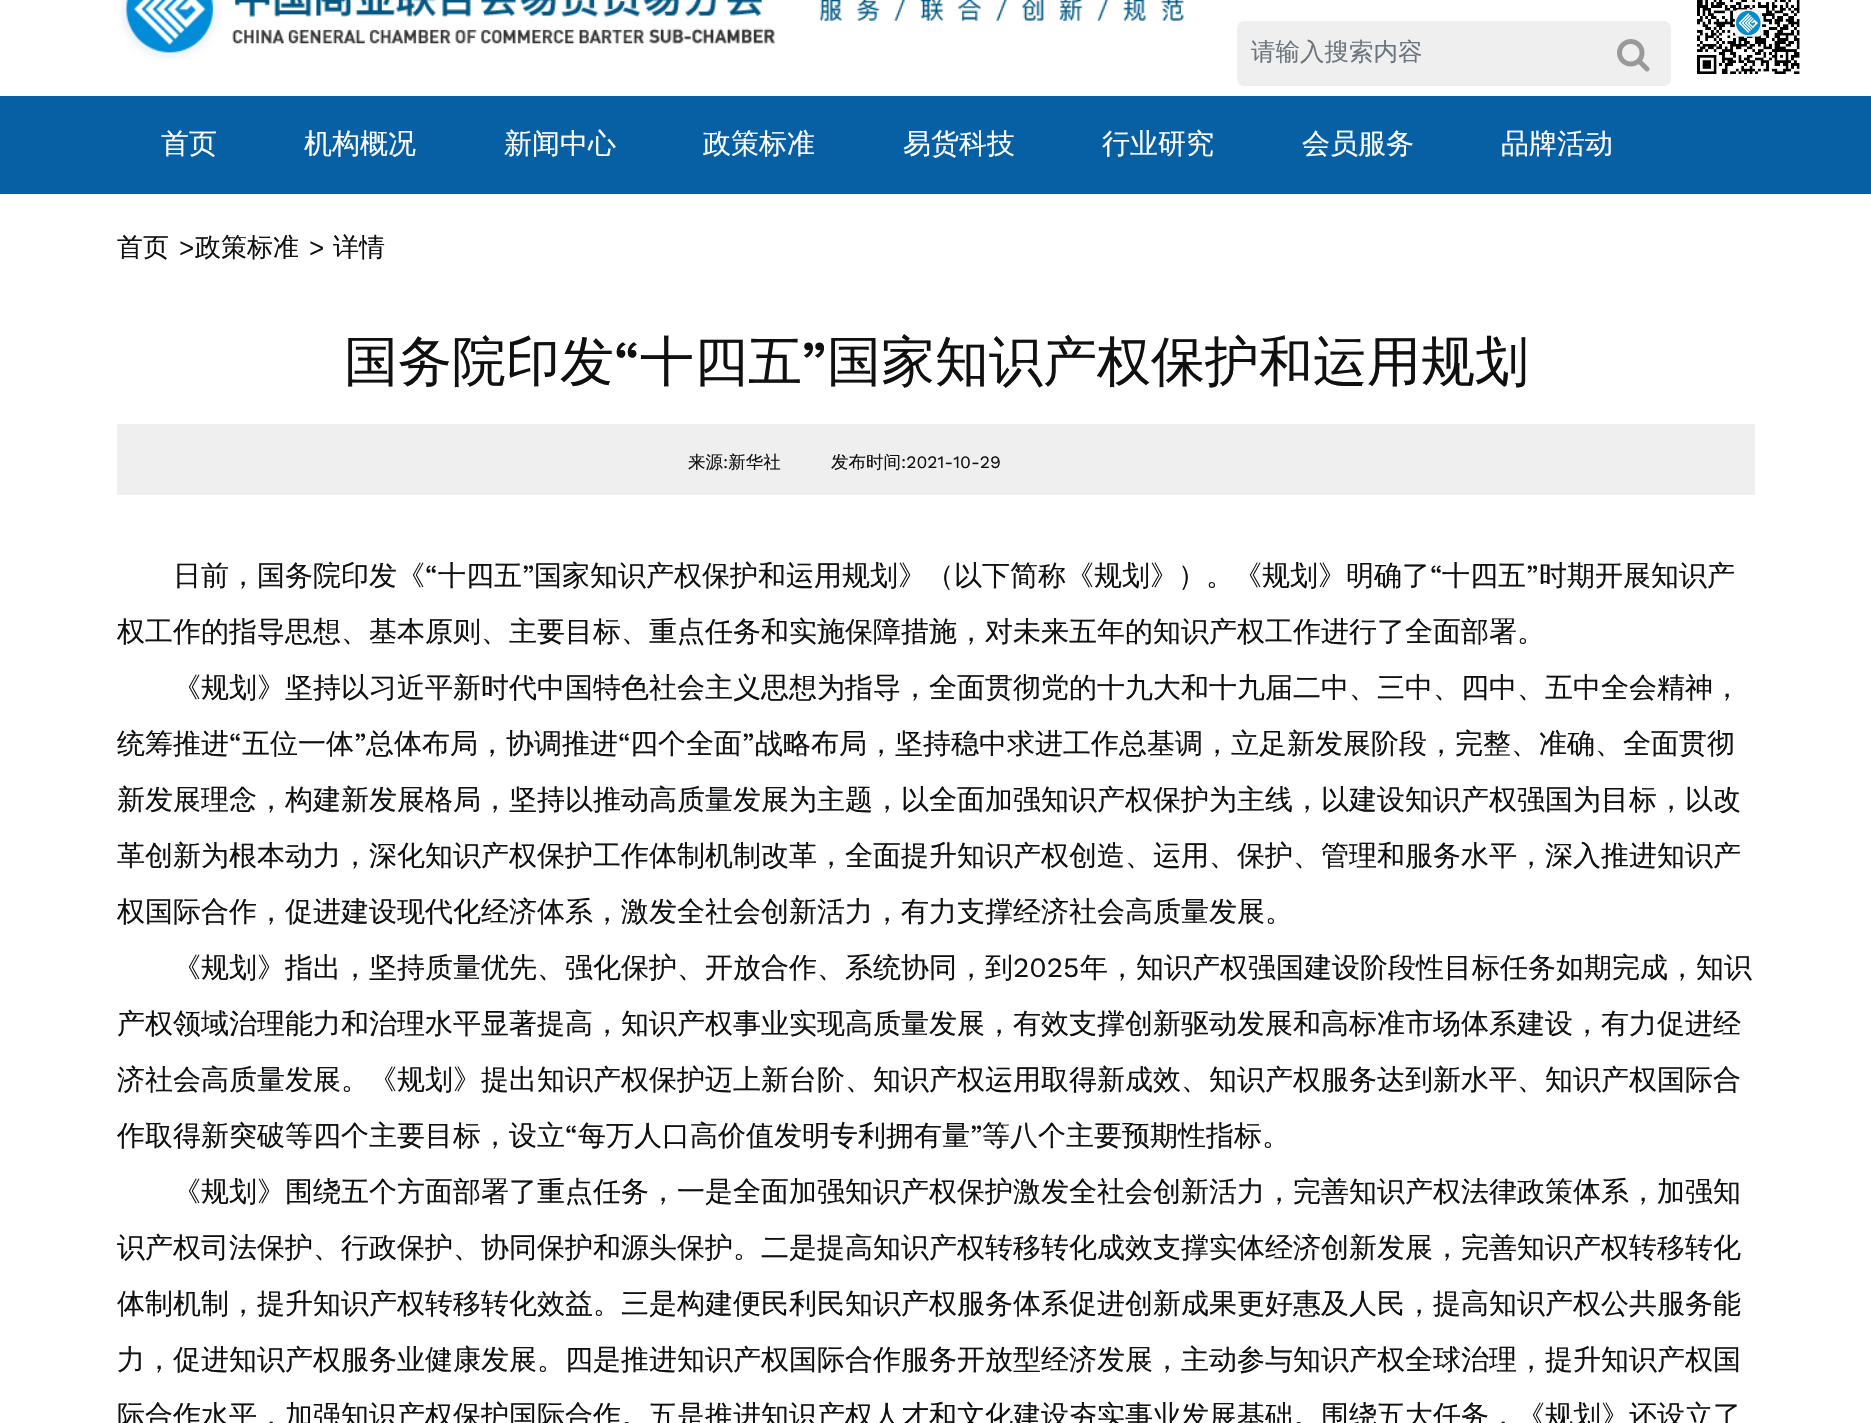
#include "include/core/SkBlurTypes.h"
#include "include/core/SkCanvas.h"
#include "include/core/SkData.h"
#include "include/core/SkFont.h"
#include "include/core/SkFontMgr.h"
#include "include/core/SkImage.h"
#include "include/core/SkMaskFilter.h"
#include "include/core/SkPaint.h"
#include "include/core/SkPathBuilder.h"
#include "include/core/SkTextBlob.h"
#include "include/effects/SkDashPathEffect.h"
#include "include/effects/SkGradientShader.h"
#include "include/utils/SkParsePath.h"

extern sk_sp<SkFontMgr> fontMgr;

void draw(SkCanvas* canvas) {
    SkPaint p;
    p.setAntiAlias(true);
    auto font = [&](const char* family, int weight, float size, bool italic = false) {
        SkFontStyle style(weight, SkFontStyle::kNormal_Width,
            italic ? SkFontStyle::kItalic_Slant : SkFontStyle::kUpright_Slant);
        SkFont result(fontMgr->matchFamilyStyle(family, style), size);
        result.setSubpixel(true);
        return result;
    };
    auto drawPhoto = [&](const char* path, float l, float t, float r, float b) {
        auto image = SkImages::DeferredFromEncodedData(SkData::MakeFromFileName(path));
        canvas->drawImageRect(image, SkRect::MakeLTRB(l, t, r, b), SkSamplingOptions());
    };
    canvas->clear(0xFFFFFFFF);
    drawPhoto("media/1.png", 119, 0, 1184, 60);
    p.setColor(0xFFEFEFEF);
    canvas->drawRoundRect(SkRect::MakeLTRB(1237, 21, 1671, 86), 7, 7, p);
    auto font1 = font("WenQuanYi Zen Hei", 500, 24.5f);
    p.setColor(0xFF6C757D);
    canvas->drawString("请输入搜索内容", 1251, 60, font1, p);
    drawPhoto("media/2.png", 1617, 39, 1650, 72);
    drawPhoto("media/3.png", 1697, 0, 1800, 74);
    p.setColor(0xFF0760A4);
    canvas->drawRect(SkRect::MakeLTRB(0, 96, 1871, 194), p);
    auto font2 = font("WenQuanYi Zen Hei", 500, 28);
    p.setColor(0xFFFFFFFF);
    {
        const struct { const char* s; float x, y; } items[] = {
            {"首页", 161, 153},
            {"机构概况", 304, 153},
            {"新闻中心", 504, 153},
            {"政策标准", 703, 153},
            {"易货科技", 903, 153},
            {"行业研究", 1102, 153},
            {"会员服务", 1302, 153},
            {"品牌活动", 1501, 153},
        };
        for (auto [s, x, y] : items) {
            canvas->drawString(s, x, y, font2, p);
        }
    }
    auto font3 = font("WenQuanYi Zen Hei", 500, 26);
    p.setColor(0xFF101010);
    canvas->drawString("首页", 117, 256, font3, p);
    auto font4 = font("Work Sans", 400, 26);
    canvas->drawString(">", 179, 256, font4, p);
    canvas->drawString("政策标准", 195, 256, font3, p);
    canvas->drawString(">", 309, 256, font4, p);
    canvas->drawString("详情", 333, 256, font3, p);
    auto font5 = font("WenQuanYi Zen Hei", 500, 54);
    canvas->drawString("国务院印发", 344, 380, font5, p);
    auto font6 = font("Work Sans", 500, 54);
    canvas->drawString("“", 614, 380, font6, p);
    canvas->drawString("十四五", 640, 380, font5, p);
    canvas->drawString("”", 801, 380, font6, p);
    canvas->drawString("国家知识产权保护和运用规划", 827, 380, font5, p);
    p.setColor(0xFFEFEFEF);
    canvas->drawRect(SkRect::MakeLTRB(117, 424, 1755, 495), p);
    auto font7 = font("WenQuanYi Zen Hei", 500, 17.5f);
    p.setColor(0xFF101010);
    canvas->drawString("来源 新华社", 688, 468, font7, p);
    canvas->drawString("发布时间", 831, 468, font7, p);
    auto font8 = font("Work Sans", 400, 17.5f);
    canvas->drawString(":2021-10-29", 901, 468, font8, p);
    canvas->drawString(":", 723, 468, font8, p);
    canvas->drawString("日前，国务院印发《", 173, 585, font2, p);
    auto font9 = font("Work Sans", 400, 28);
    canvas->drawString("“", 425, 585, font9, p);
    canvas->drawString("十四五", 438, 585, font2, p);
    canvas->drawString("”", 522, 585, font9, p);
    canvas->drawString("国家知识产权保护和运用规划》（以下简称《规划》）。《规划》明确了", 534, 585, font2, p);
    canvas->drawString("“", 1430, 585, font9, p);
    canvas->drawString("十四五", 1442, 585, font2, p);
    canvas->drawString("”", 1526, 585, font9, p);
    {
        const struct { const char* s; float x, y; } items[] = {
            {"时期开展知识产", 1539, 585},
            {"权工作的指导思想、基本原则、主要目标、重点任务和实施保障措施，对未来五年的知识产权工作进行了全面部署。", 117, 641},
            {"《规划》坚持以习近平新时代中国特色社会主义思想为指导，全面贯彻党的十九大和十九届二中、三中、四中、五中全会精神，", 173, 697},
            {"统筹推进", 117, 753},
        };
        for (auto [s, x, y] : items) {
            canvas->drawString(s, x, y, font2, p);
        }
    }
    canvas->drawString("“", 229, 753, font9, p);
    canvas->drawString("五位一体", 242, 753, font2, p);
    canvas->drawString("”", 354, 753, font9, p);
    canvas->drawString("总体布局，协调推进", 366, 753, font2, p);
    canvas->drawString("“", 618, 753, font9, p);
    canvas->drawString("四个全面", 630, 753, font2, p);
    canvas->drawString("”", 742, 753, font9, p);
    {
        const struct { const char* s; float x, y; } items[] = {
            {"战略布局，坚持稳中求进工作总基调，立足新发展阶段，完整、准确、全面贯彻", 755, 753},
            {"新发展理念，构建新发展格局，坚持以推动高质量发展为主题，以全面加强知识产权保护为主线，以建设知识产权强国为目标，以改", 117, 809},
            {"革创新为根本动力，深化知识产权保护工作体制机制改革，全面提升知识产权创造、运用、保护、管理和服务水平，深入推进知识产", 117, 865},
            {"权国际合作，促进建设现代化经济体系，激发全社会创新活力，有力支撑经济社会高质量发展。", 117, 921},
            {"《规划》指出，坚持质量优先、强化保护、开放合作、系统协同，到", 173, 977},
        };
        for (auto [s, x, y] : items) {
            canvas->drawString(s, x, y, font2, p);
        }
    }
    canvas->drawString("2025", 1013, 977, font9, p);
    {
        const struct { const char* s; float x, y; } items[] = {
            {"年，知识产权强国建设阶段性目标任务如期完成，知识", 1080, 977},
            {"产权领域治理能力和治理水平显著提高，知识产权事业实现高质量发展，有效支撑创新驱动发展和高标准市场体系建设，有力促进经", 117, 1033},
            {"济社会高质量发展。《规划》提出知识产权保护迈上新台阶、知识产权运用取得新成效、知识产权服务达到新水平、知识产权国际合", 117, 1089},
            {"作取得新突破等四个主要目标，设立", 117, 1145},
        };
        for (auto [s, x, y] : items) {
            canvas->drawString(s, x, y, font2, p);
        }
    }
    canvas->drawString("“", 565, 1145, font9, p);
    canvas->drawString("每万人口高价值发明专利拥有量", 578, 1145, font2, p);
    canvas->drawString("”", 970, 1145, font9, p);
    {
        const struct { const char* s; float x, y; } items[] = {
            {"等八个主要预期性指标。", 982, 1145},
            {"《规划》围绕五个方面部署了重点任务，一是全面加强知识产权保护激发全社会创新活力，完善知识产权法律政策体系，加强知", 173, 1201},
            {"识产权司法保护、行政保护、协同保护和源头保护。二是提高知识产权转移转化成效支撑实体经济创新发展，完善知识产权转移转化", 117, 1257},
            {"体制机制，提升知识产权转移转化效益。三是构建便民利民知识产权服务体系促进创新成果更好惠及人民，提高知识产权公共服务能", 117, 1313},
            {"力，促进知识产权服务业健康发展。四是推进知识产权国际合作服务开放型经济发展，主动参与知识产权全球治理，提升知识产权国", 117, 1369},
            {"际合作水平，加强知识产权保护国际合作。五是推进知识产权人才和文化建设夯实事业发展基础。围绕五大任务，《规划》还设立了", 117, 1425},
        };
        for (auto [s, x, y] : items) {
            canvas->drawString(s, x, y, font2, p);
        }
    }
}
